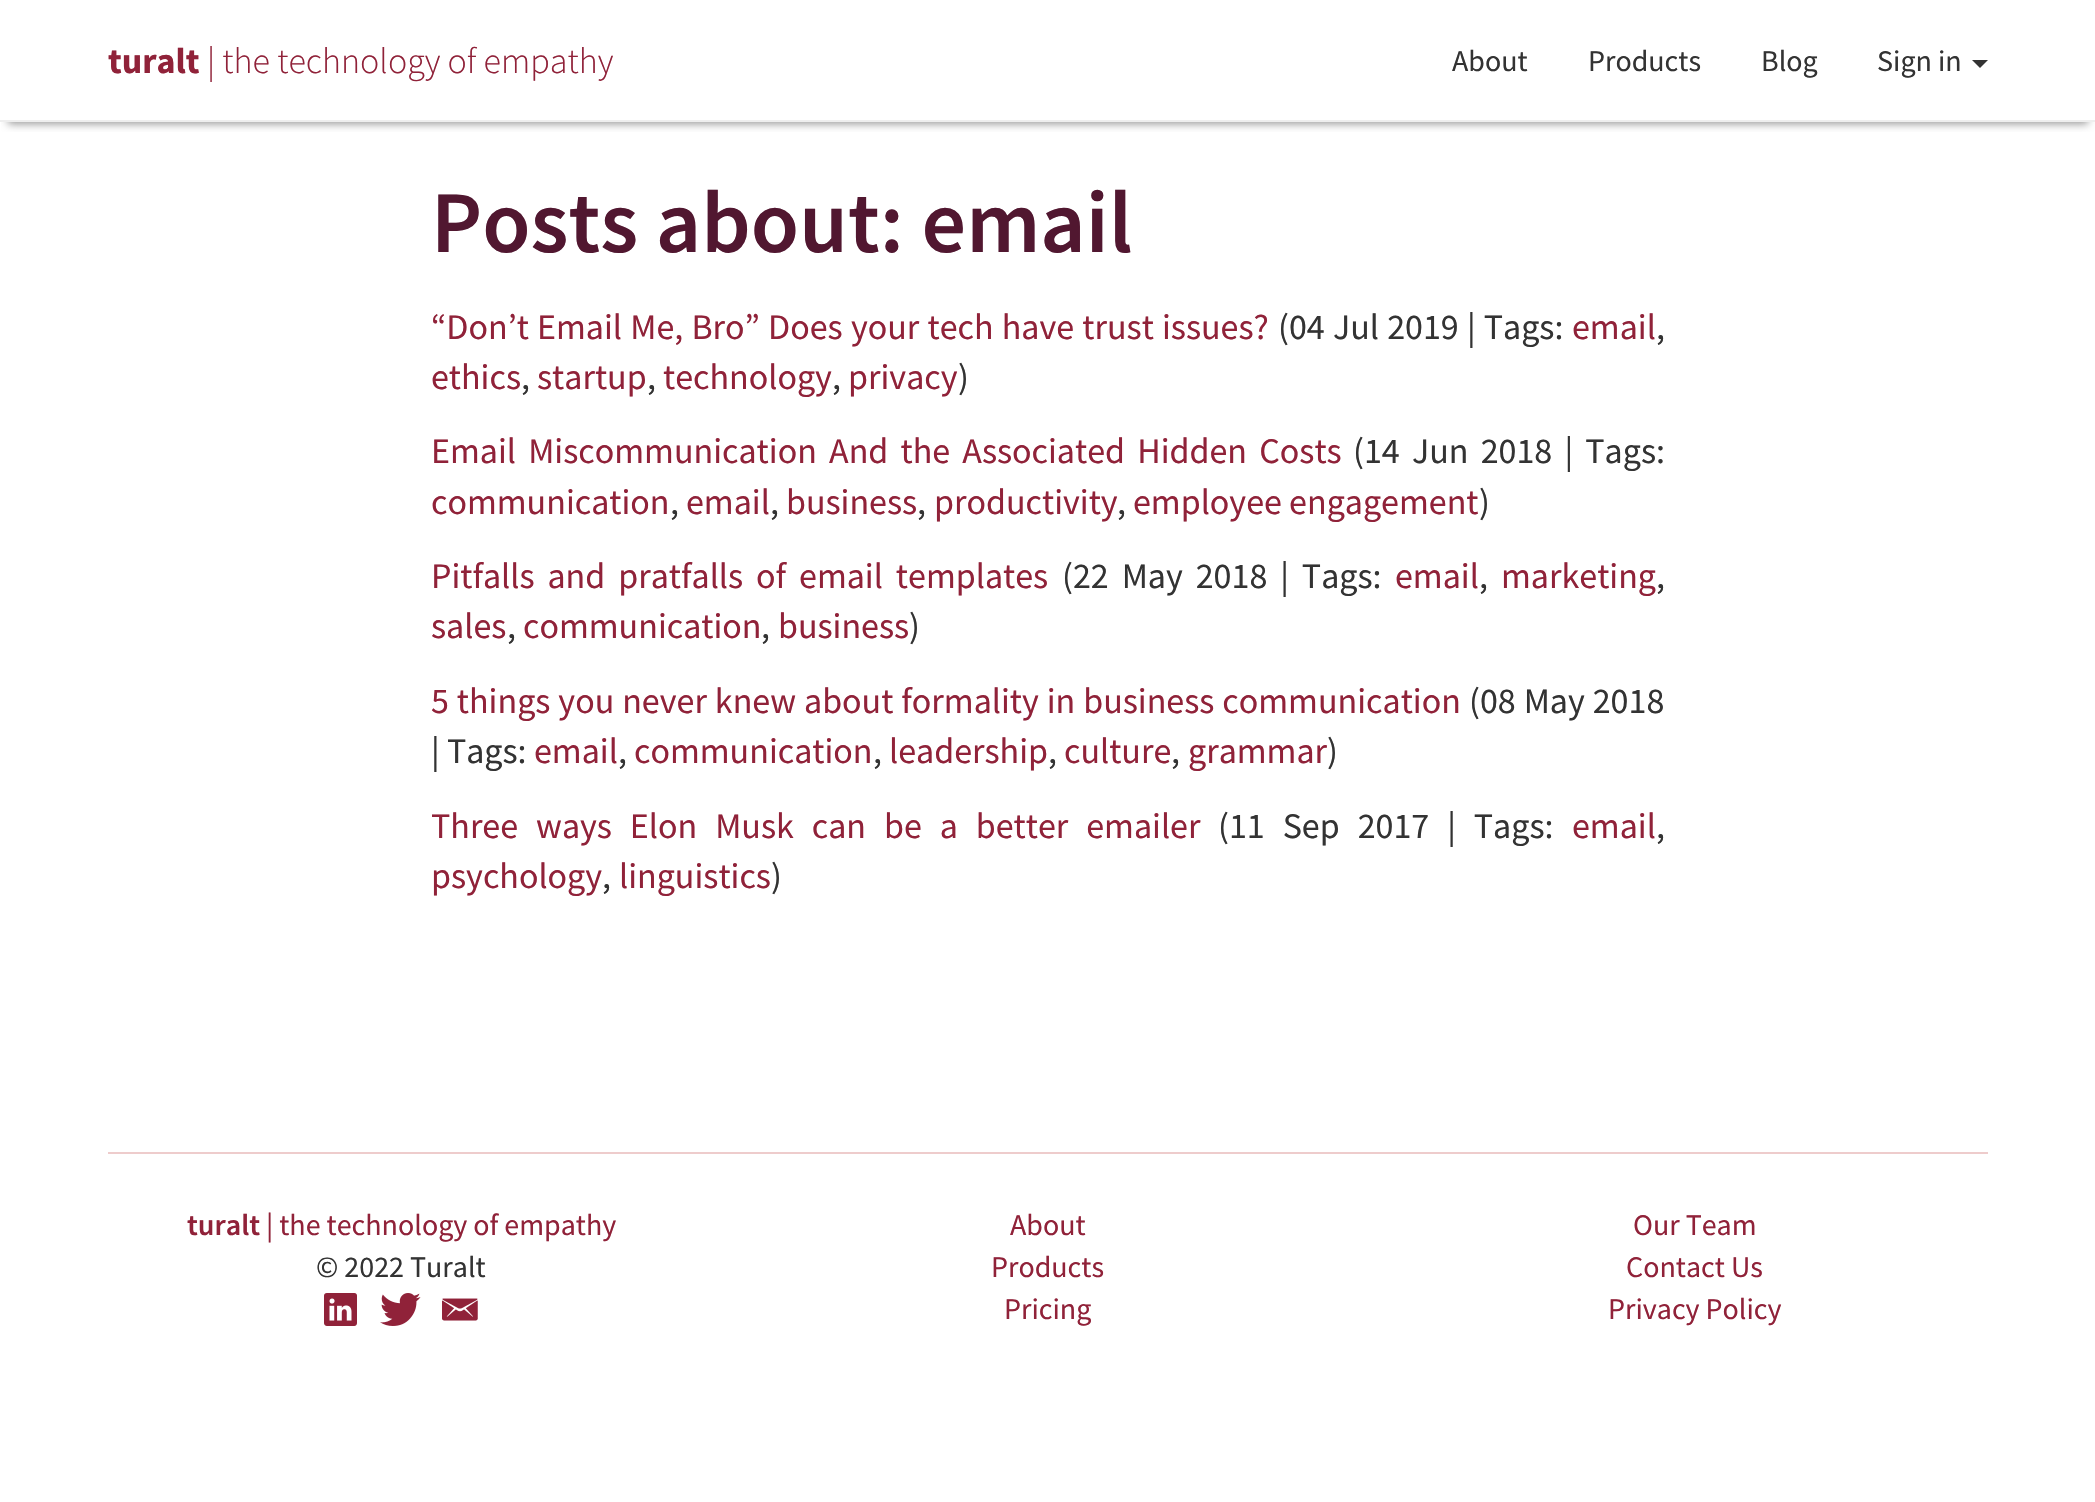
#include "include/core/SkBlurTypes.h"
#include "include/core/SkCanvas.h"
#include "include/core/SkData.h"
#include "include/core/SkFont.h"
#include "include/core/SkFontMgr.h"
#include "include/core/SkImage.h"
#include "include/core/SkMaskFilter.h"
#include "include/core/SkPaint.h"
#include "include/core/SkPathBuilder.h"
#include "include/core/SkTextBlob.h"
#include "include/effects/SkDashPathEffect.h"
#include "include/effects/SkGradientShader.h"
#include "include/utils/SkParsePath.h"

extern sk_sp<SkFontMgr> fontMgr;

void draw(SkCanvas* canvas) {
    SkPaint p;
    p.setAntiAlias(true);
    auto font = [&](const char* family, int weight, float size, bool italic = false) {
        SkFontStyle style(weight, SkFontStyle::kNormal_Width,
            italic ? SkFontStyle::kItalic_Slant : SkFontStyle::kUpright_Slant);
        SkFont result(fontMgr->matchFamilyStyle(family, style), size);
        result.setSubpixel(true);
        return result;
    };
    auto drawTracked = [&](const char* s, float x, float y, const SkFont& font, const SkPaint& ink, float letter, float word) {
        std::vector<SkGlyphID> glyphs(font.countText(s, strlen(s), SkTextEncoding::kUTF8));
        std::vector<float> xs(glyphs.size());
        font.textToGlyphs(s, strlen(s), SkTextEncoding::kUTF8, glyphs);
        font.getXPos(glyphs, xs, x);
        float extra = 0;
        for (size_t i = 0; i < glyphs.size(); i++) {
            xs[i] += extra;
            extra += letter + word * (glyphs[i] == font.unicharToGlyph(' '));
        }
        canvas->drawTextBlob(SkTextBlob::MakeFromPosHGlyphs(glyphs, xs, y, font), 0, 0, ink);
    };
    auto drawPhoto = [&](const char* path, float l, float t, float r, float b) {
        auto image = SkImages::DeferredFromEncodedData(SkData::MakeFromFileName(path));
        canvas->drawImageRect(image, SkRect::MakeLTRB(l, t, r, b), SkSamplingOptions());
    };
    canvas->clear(0xFFFFFFFF);
    canvas->save();
    canvas->clipRect(SkRect::MakeLTRB(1, 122, 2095, 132));
    p.setColor(0xFF999999);
    p.setMaskFilter(SkMaskFilter::MakeBlur(kNormal_SkBlurStyle, 4));
    canvas->drawRect(SkRect::MakeLTRB(8, 18, 2088, 124), p);
    p.setMaskFilter(nullptr);
    canvas->restore();
    p.setColor(0xFFEEEEEE);
    canvas->drawRect(SkRect::MakeLTRB(0, 120, 2095, 122), p);
    auto font1 = font("Source Sans Pro", 700, 36);
    p.setColor(0xFF902239);
    canvas->drawString("turalt", 108, 73, font1, p);
    auto font2 = font("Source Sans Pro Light", 300, 36);
    canvas->drawString("| the technology of empathy", 207, 73, font2, p);
    auto font3 = font("Source Sans Pro", 400, 30);
    p.setColor(0xFF333333);
    {
        const struct { const char* s; float x, y; } items[] = {
            {"About", 1452, 71},
            {"Products", 1588, 71},
            {"Blog", 1761, 71},
            {"Sign in", 1877, 71},
        };
        for (auto [s, x, y] : items) {
            canvas->drawString(s, x, y, font3, p);
        }
    }
    canvas->drawPath(SkPathBuilder().moveTo(1972, 60).lineTo(1988, 60).lineTo(1980, 68).close().detach(), p);
    auto font4 = font("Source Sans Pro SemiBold", 600, 88);
    p.setColor(0xFF511730);
    canvas->drawString("Posts about: email", 431, 252, font4, p);
    auto font5 = font("Source Sans Pro", 400, 36);
    p.setColor(0xFF902239);
    drawTracked("“Don’t Email Me, Bro” Does your tech have trust issues?", 431, 339, font5, p, 0, 1);
    p.setColor(0xFF333333);
    drawTracked("(04 Jul 2019 | Tags:", 1278, 339, font5, p, 0, 1);
    p.setColor(0xFF902239);
    canvas->drawString("email", 1572, 339, font5, p);
    p.setColor(0xFF333333);
    canvas->drawString(",", 1656, 339, font5, p);
    p.setColor(0xFF902239);
    canvas->drawString("ethics", 431, 389, font5, p);
    p.setColor(0xFF333333);
    canvas->drawString(",", 521, 389, font5, p);
    p.setColor(0xFF902239);
    canvas->drawString("startup", 537, 389, font5, p);
    p.setColor(0xFF333333);
    canvas->drawString(",", 647, 389, font5, p);
    p.setColor(0xFF902239);
    canvas->drawString("technology", 663, 389, font5, p);
    p.setColor(0xFF333333);
    canvas->drawString(",", 832, 389, font5, p);
    p.setColor(0xFF902239);
    canvas->drawString("privacy", 848, 389, font5, p);
    p.setColor(0xFF333333);
    canvas->drawString(")", 958, 389, font5, p);
    p.setColor(0xFF902239);
    drawTracked("Email Miscommunication And the Associated Hidden Costs", 431, 463, font5, p, 0, 5);
    p.setColor(0xFF333333);
    drawTracked("(14 Jun 2018 | Tags:", 1353, 463, font5, p, 0, 5);
    p.setColor(0xFF902239);
    canvas->drawString("communication", 431, 514, font5, p);
    p.setColor(0xFF333333);
    canvas->drawString(",", 670, 514, font5, p);
    p.setColor(0xFF902239);
    canvas->drawString("email", 686, 514, font5, p);
    p.setColor(0xFF333333);
    canvas->drawString(",", 770, 514, font5, p);
    p.setColor(0xFF902239);
    canvas->drawString("business", 786, 514, font5, p);
    p.setColor(0xFF333333);
    canvas->drawString(",", 917, 514, font5, p);
    p.setColor(0xFF902239);
    canvas->drawString("productivity", 934, 514, font5, p);
    p.setColor(0xFF333333);
    canvas->drawString(",", 1117, 514, font5, p);
    p.setColor(0xFF902239);
    canvas->drawString("employee engagement", 1133, 514, font5, p);
    p.setColor(0xFF333333);
    canvas->drawString(")", 1479, 514, font5, p);
    p.setColor(0xFF902239);
    drawTracked("Pitfalls and pratfalls of email templates", 431, 588, font5, p, 0, 5.75f);
    p.setColor(0xFF333333);
    drawTracked("(22 May 2018 | Tags:", 1062, 588, font5, p, 0, 5.75f);
    p.setColor(0xFF902239);
    canvas->drawString("email", 1395, 588, font5, p);
    p.setColor(0xFF333333);
    canvas->drawString(",", 1479, 588, font5, p);
    p.setColor(0xFF902239);
    canvas->drawString("marketing", 1501, 588, font5, p);
    p.setColor(0xFF333333);
    canvas->drawString(",", 1656, 588, font5, p);
    p.setColor(0xFF902239);
    canvas->drawString("sales", 431, 638, font5, p);
    p.setColor(0xFF333333);
    canvas->drawString(",", 507, 638, font5, p);
    p.setColor(0xFF902239);
    canvas->drawString("communication", 523, 638, font5, p);
    p.setColor(0xFF333333);
    canvas->drawString(",", 761, 638, font5, p);
    p.setColor(0xFF902239);
    canvas->drawString("business", 778, 638, font5, p);
    p.setColor(0xFF333333);
    canvas->drawString(")", 909, 638, font5, p);
    p.setColor(0xFF902239);
    drawTracked("5 things you never knew about formality in business communication", 431, 713, font5, p, 0, 0.75f);
    p.setColor(0xFF333333);
    drawTracked("(08 May 2018", 1469, 713, font5, p, 0, 0.75f);
    canvas->drawString("| Tags:", 431, 763, font5, p);
    p.setColor(0xFF902239);
    canvas->drawString("email", 534, 763, font5, p);
    p.setColor(0xFF333333);
    canvas->drawString(",", 618, 763, font5, p);
    p.setColor(0xFF902239);
    canvas->drawString("communication", 634, 763, font5, p);
    p.setColor(0xFF333333);
    canvas->drawString(",", 873, 763, font5, p);
    p.setColor(0xFF902239);
    canvas->drawString("leadership", 889, 763, font5, p);
    p.setColor(0xFF333333);
    canvas->drawString(",", 1048, 763, font5, p);
    p.setColor(0xFF902239);
    canvas->drawString("culture", 1064, 763, font5, p);
    p.setColor(0xFF333333);
    canvas->drawString(",", 1171, 763, font5, p);
    p.setColor(0xFF902239);
    canvas->drawString("grammar", 1188, 763, font5, p);
    p.setColor(0xFF333333);
    canvas->drawString(")", 1327, 763, font5, p);
    p.setColor(0xFF902239);
    drawTracked("Three ways Elon Musk can be a better emailer", 431, 838, font5, p, 0, 10.75f);
    p.setColor(0xFF333333);
    drawTracked("(11 Sep 2017 | Tags:", 1218, 838, font5, p, 0, 10.75f);
    p.setColor(0xFF902239);
    canvas->drawString("email", 1572, 838, font5, p);
    p.setColor(0xFF333333);
    canvas->drawString(",", 1656, 838, font5, p);
    p.setColor(0xFF902239);
    canvas->drawString("psychology", 431, 888, font5, p);
    p.setColor(0xFF333333);
    canvas->drawString(",", 602, 888, font5, p);
    p.setColor(0xFF902239);
    canvas->drawString("linguistics", 619, 888, font5, p);
    p.setColor(0xFF333333);
    canvas->drawString(")", 771, 888, font5, p);
    p.setColor(0xFFEECCCC);
    canvas->drawRect(SkRect::MakeLTRB(108, 1152, 1988, 1154), p);
    auto font6 = font("Source Sans Pro SemiBold", 600, 30);
    p.setColor(0xFF902239);
    canvas->drawString("turalt", 187, 1235, font6, p);
    canvas->drawString("| the technology of empathy", 266, 1235, font3, p);
    p.setColor(0xFF333333);
    canvas->drawString("© 2022 Turalt", 316, 1277, font3, p);
    drawPhoto("media/1.png", 324, 1293, 357, 1326);
    drawPhoto("media/2.png", 380, 1293, 421, 1326);
    drawPhoto("media/3.png", 442, 1298, 478, 1321);
    p.setColor(0xFF902239);
    {
        const struct { const char* s; float x, y; } items[] = {
            {"About", 1010, 1235},
            {"Products", 991, 1277},
            {"Pricing", 1004, 1319},
            {"Our Team", 1633, 1235},
            {"Contact Us", 1626, 1277},
            {"Privacy Policy", 1608, 1319},
        };
        for (auto [s, x, y] : items) {
            canvas->drawString(s, x, y, font3, p);
        }
    }
}
